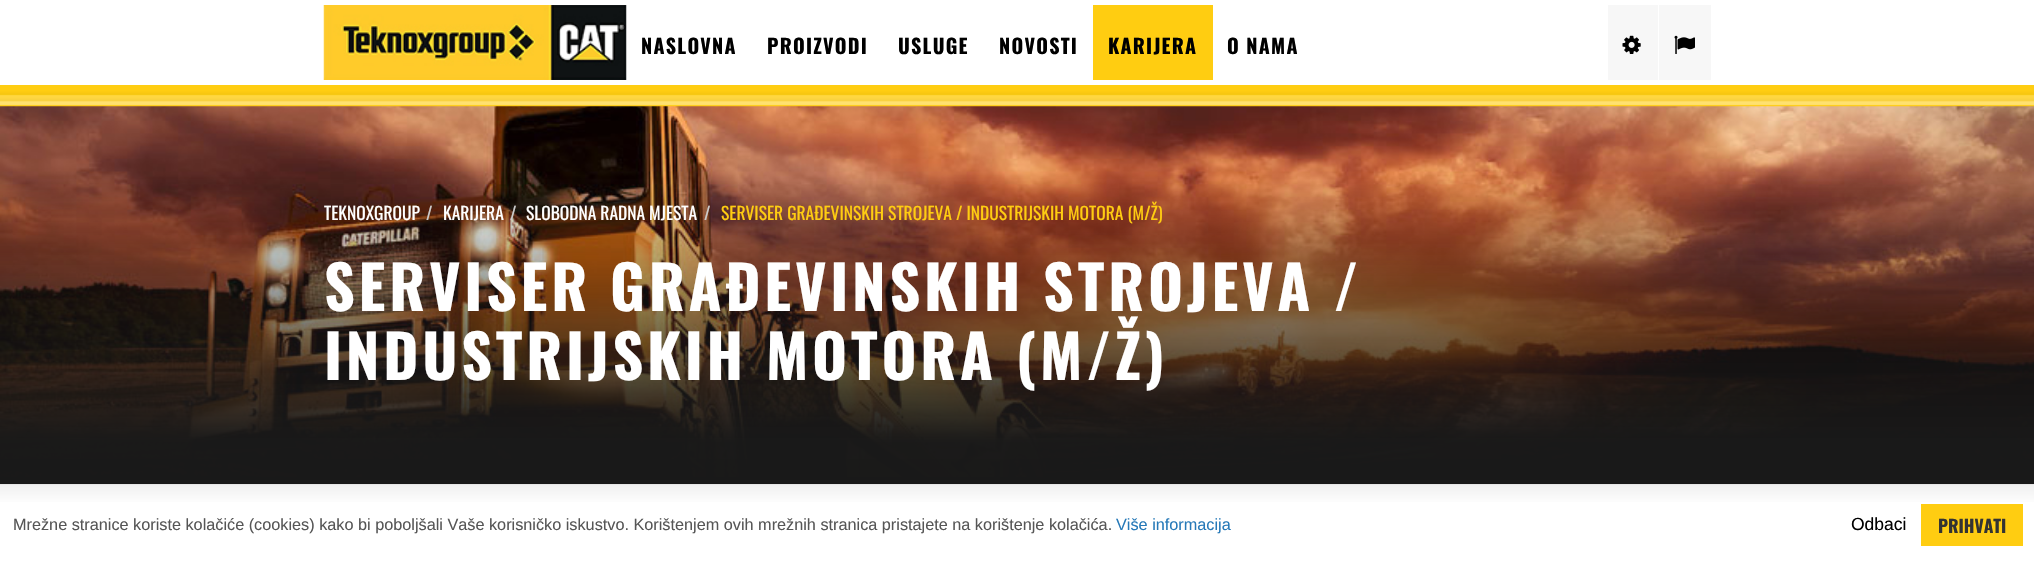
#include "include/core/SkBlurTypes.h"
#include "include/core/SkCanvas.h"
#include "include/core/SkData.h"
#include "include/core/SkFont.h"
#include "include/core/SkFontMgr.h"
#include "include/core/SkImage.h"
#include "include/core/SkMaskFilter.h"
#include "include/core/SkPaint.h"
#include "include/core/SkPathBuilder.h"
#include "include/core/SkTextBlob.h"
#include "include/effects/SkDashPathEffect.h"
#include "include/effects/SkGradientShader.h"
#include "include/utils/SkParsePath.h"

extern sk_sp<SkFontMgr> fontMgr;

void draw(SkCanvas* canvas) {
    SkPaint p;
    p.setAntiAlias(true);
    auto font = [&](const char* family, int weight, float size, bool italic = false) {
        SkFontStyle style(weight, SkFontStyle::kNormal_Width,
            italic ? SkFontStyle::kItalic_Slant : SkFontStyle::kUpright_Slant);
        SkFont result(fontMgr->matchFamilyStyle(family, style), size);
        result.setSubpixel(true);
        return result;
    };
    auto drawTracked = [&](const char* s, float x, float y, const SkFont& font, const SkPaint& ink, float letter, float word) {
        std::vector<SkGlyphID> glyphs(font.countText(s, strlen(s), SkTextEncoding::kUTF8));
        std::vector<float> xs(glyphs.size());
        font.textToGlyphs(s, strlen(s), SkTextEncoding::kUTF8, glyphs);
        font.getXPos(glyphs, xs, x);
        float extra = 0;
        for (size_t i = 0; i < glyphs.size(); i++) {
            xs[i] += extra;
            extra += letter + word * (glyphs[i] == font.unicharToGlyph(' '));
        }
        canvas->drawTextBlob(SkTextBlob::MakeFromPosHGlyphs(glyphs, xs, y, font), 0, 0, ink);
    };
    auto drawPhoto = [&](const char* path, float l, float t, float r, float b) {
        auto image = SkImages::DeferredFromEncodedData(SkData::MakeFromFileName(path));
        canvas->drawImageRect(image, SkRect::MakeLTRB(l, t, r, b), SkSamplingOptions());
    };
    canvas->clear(0xFFFFFFFF);
    drawPhoto("media/1.png", 323, 5, 627, 80);
    auto font1 = font("Oswald", 700, 20);
    p.setColor(0xFF000000);
    {
        const struct { const char* s; float x, y; } items[] = {
            {"NASLOVNA", 641, 54},
            {"PROIZVODI", 767, 54},
            {"USLUGE", 898, 54},
            {"NOVOSTI", 999, 54},
        };
        for (auto [s, x, y] : items) {
            drawTracked(s, x, y, font1, p, 1.25f, 0);
        }
    }
    p.setColor(0xFFFFCD11);
    canvas->drawRect(SkRect::MakeLTRB(1093, 5, 1213, 80), p);
    p.setColor(0xFF000000);
    drawTracked("KARIJERA", 1108, 54, font1, p, 1.25f, 0);
    drawTracked("O NAMA", 1227, 54, font1, p, 1.25f, 0);
    p.setColor(0xFFF7F7F7);
    canvas->drawRect(SkRect::MakeLTRB(1608, 5, 1658, 80), p);
    drawPhoto("media/2.png", 1622, 35, 1641, 54);
    canvas->drawRect(SkRect::MakeLTRB(1659, 5, 1711, 80), p);
    drawPhoto("media/3.png", 1674, 35, 1695, 54);
    drawPhoto("media/5.png", 0, 106, 2034, 484);
    drawPhoto("media/4.png", 0, 85, 2034, 107);
    auto font2 = font("Oswald", 400, 17.5f);
    p.setColor(0xFFFFFFFF);
    canvas->drawString("TEKNOXGROUP", 324, 220, font2, p);
    p.setColor(0xFFCCCCCC);
    canvas->drawString("/", 426, 220, font2, p);
    p.setColor(0xFFFFFFFF);
    canvas->drawString("KARIJERA", 443, 220, font2, p);
    p.setColor(0xFFCCCCCC);
    canvas->drawString("/", 510, 220, font2, p);
    p.setColor(0xFFFFFFFF);
    canvas->drawString("SLOBODNA RADNA MJESTA", 526, 220, font2, p);
    p.setColor(0xFFCCCCCC);
    canvas->drawString("/", 704, 220, font2, p);
    p.setColor(0xFFFFCD11);
    canvas->drawString("SERVISER GRAĐEVINSKIH STROJEVA / INDUSTRIJSKIH MOTORA (M/Ž)", 721, 220, font2, p);
    auto font3 = font("Oswald", 700, 60);
    p.setColor(0xFFFFFFFF);
    drawTracked("SERVISER GRAĐEVINSKIH STROJEVA /", 324, 311, font3, p, 3.75f, 0);
    drawTracked("INDUSTRIJSKIH MOTORA (M/Ž)", 324, 380, font3, p, 3.75f, 0);
    {
        const SkColor colors[] = {0xFFF0F0F0, 0xFFFFFFFF};
        const float stops[] = {0, 0.24f};
        const SkPoint ends[] = {{1018, 485}, {1018, 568}};
        p.setShader(SkGradientShader::MakeLinear(ends, colors, stops, 2, SkTileMode::kClamp));
        p.setAlpha(255);
    }
    canvas->drawRect(SkRect::MakeLTRB(0, 485, 2034, 502), p);
    p.setShader(nullptr);
    p.setColor(0xFFE6E6E6);
    canvas->drawRect(SkRect::MakeLTRB(0, 484, 2034, 485), p);
    auto font4 = font("Liberation Sans", 400, 16.25f);
    p.setColor(0xFF565656);
    canvas->drawString("Mrežne stranice koriste kolačiće (cookies) kako bi poboljšali Vaše korisničko iskustvo. Korištenjem ovih mrežnih stranica pristajete na korištenje kolačića.", 13, 530, font4, p);
    p.setColor(0xFF2679B8);
    canvas->drawString("Više informacija", 1116, 530, font4, p);
    auto font5 = font("Liberation Sans", 400, 17.5f);
    p.setColor(0xFF000000);
    canvas->drawString("Odbaci", 1851, 530, font5, p);
    p.setColor(0xFFFFCD11);
    canvas->drawRect(SkRect::MakeLTRB(1921, 504, 2023, 546), p);
    auto font6 = font("Oswald", 700, 17.5f);
    p.setColor(0xFF333333);
    canvas->drawString("PRIHVATI", 1938, 533, font6, p);
}
